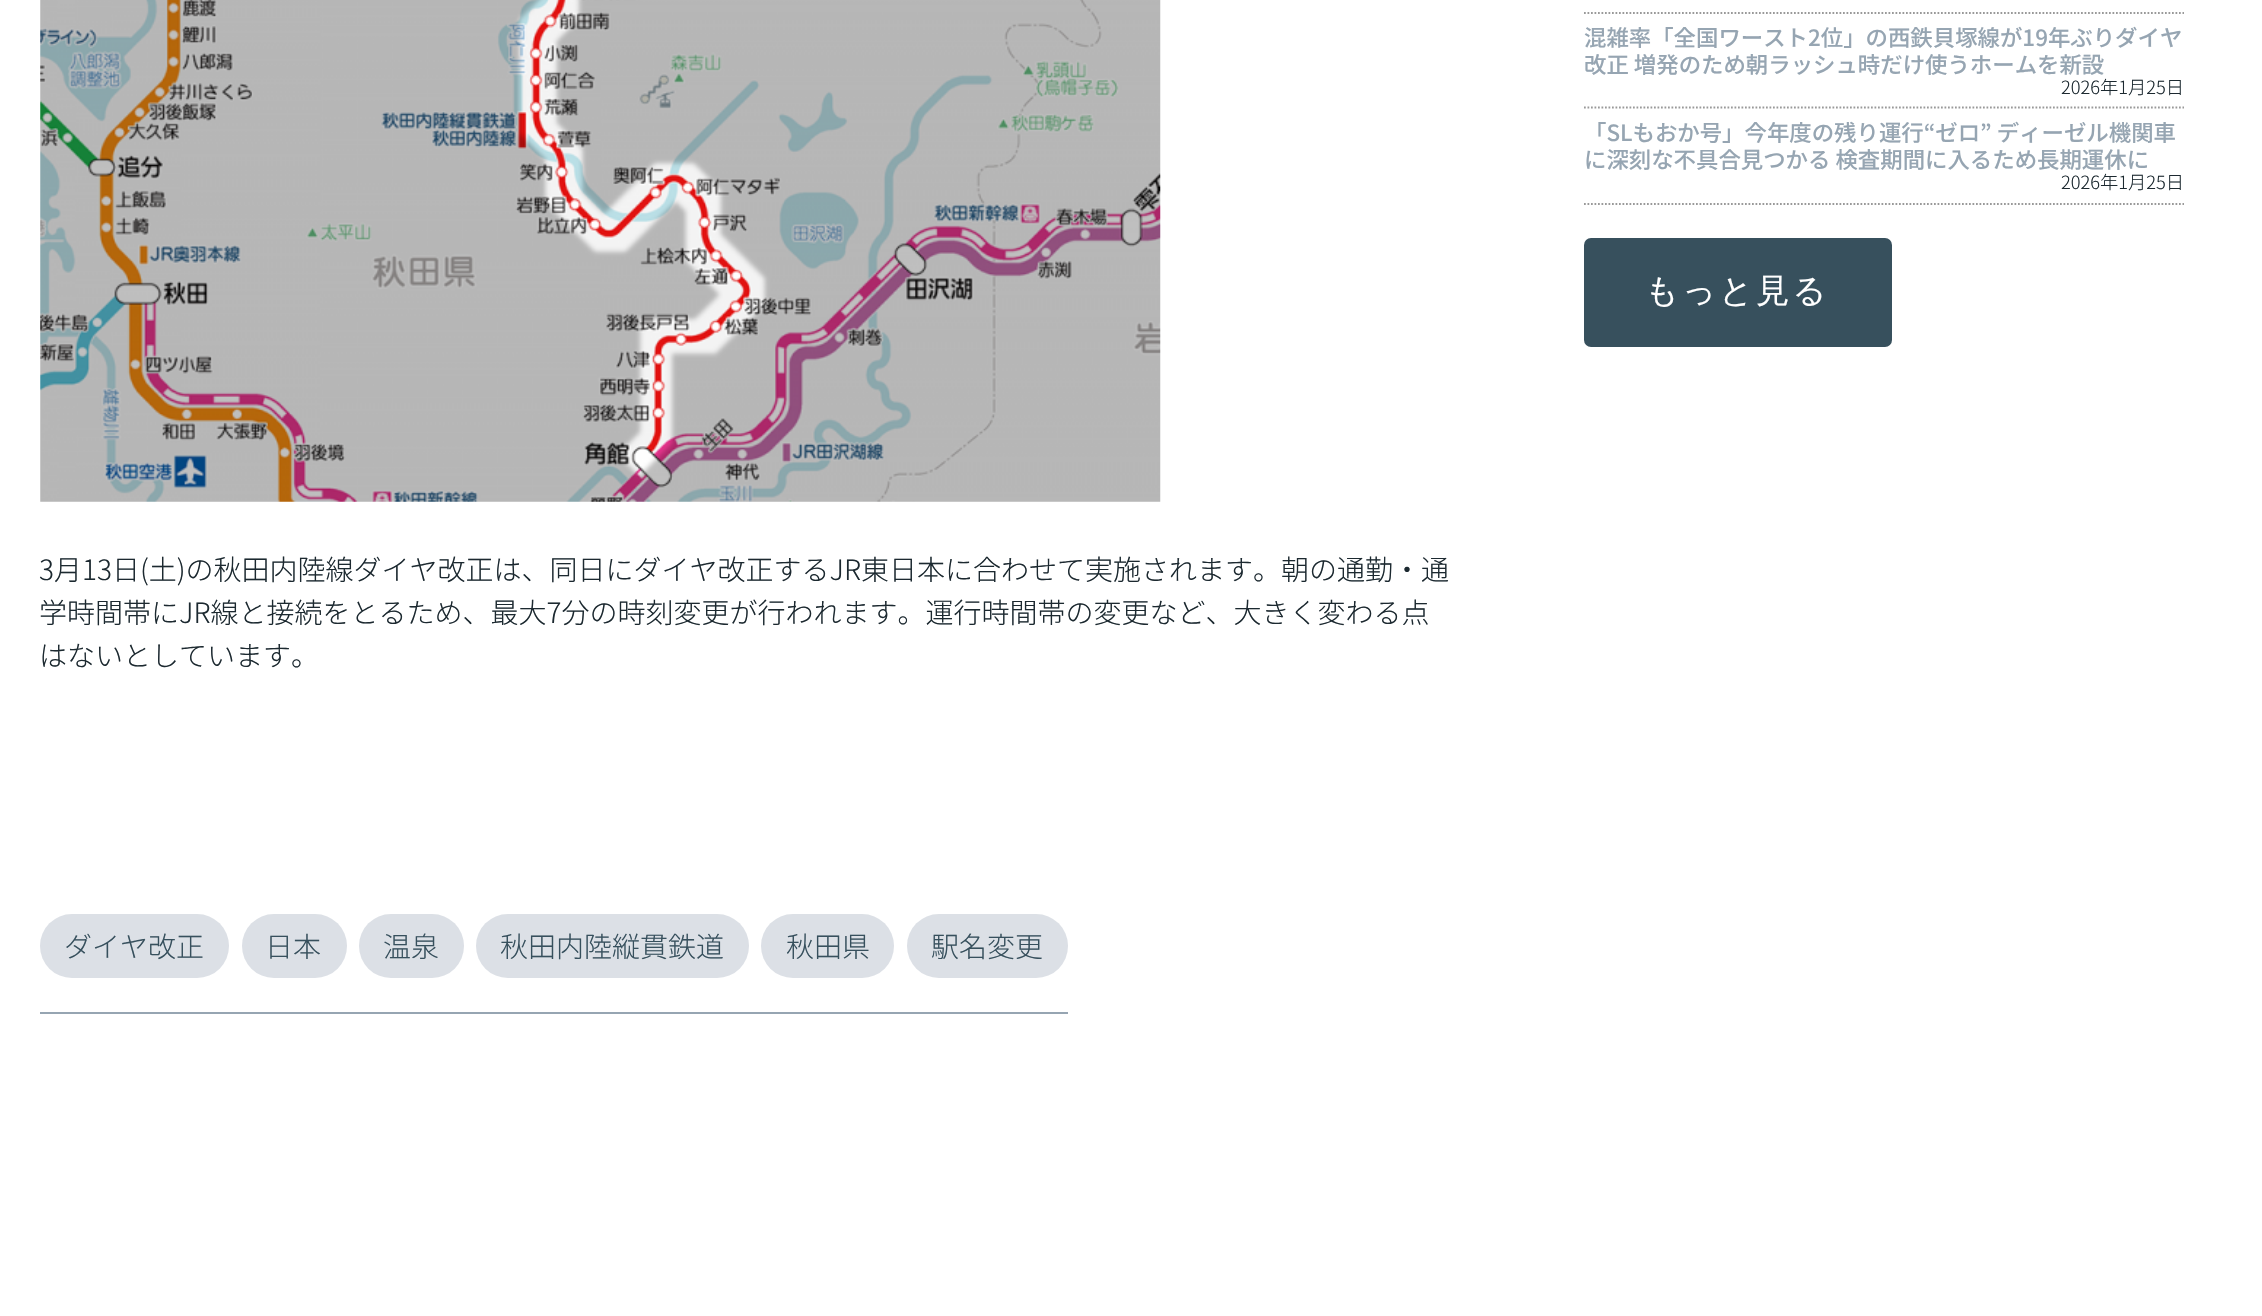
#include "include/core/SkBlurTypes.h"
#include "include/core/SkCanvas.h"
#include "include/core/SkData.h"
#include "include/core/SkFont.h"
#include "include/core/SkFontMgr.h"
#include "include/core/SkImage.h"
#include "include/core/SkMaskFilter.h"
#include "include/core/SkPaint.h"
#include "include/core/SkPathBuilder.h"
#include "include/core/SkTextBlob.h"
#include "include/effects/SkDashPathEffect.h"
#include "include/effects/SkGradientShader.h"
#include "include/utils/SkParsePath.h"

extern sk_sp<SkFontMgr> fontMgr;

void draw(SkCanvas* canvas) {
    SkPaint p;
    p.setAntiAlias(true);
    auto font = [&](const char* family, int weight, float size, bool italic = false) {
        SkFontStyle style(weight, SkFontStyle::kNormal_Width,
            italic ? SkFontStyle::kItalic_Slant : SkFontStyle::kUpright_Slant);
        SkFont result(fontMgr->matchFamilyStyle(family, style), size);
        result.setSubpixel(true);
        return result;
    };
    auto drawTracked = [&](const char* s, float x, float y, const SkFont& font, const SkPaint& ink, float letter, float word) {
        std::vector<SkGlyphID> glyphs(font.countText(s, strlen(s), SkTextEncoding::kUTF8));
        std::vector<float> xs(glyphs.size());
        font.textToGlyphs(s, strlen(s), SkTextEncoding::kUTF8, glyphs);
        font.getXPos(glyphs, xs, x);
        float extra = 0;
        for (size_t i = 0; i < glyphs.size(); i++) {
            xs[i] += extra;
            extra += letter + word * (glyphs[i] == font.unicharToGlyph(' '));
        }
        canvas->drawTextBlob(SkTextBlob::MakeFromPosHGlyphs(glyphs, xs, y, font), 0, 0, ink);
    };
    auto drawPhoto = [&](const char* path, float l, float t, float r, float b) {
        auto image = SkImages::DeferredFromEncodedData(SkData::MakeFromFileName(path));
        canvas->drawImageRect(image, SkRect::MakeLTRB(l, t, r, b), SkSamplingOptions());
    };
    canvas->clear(0xFFFFFFFF);
    p.setStyle(SkPaint::kStroke_Style);
    p.setStrokeWidth(1.8f);
    p.setColor(0xFF999999);
    p.setPathEffect(SkDashPathEffect::Make({{1.75f, 1.75f}}, 0));
    canvas->drawPath(SkPathBuilder().moveTo(1584, 13).lineTo(2184, 13).detach(), p);
    p.setPathEffect(nullptr);
    p.setPathEffect(SkDashPathEffect::Make({{1.75f, 1.75f}}, 0));
    canvas->drawPath(SkPathBuilder().moveTo(1584, 107.5f).lineTo(2184, 107.5f).detach(), p);
    p.setPathEffect(nullptr);
    auto font1 = font("Noto Sans JP", 500, 22.4f);
    p.setStyle(SkPaint::kFill_Style);
    p.setColor(0xFF96A5B2);
    canvas->drawString("混雑率「全国ワースト2位」の西鉄貝塚線が19年ぶりダイヤ", 1584, 46, font1, p);
    canvas->drawString("改正 増発のため朝ラッシュ時だけ使うホームを新設", 1584, 73, font1, p);
    auto font2 = font("Noto Sans JP", 300, 18.25f);
    p.setColor(0xFF1C2930);
    canvas->drawString("2026年1月25日", 2061, 94, font2, p);
    p.setStyle(SkPaint::kStroke_Style);
    p.setColor(0xFF999999);
    p.setPathEffect(SkDashPathEffect::Make({{1.75f, 1.75f}}, 0));
    canvas->drawPath(SkPathBuilder().moveTo(1584, 204).lineTo(2184, 204).detach(), p);
    p.setPathEffect(nullptr);
    p.setStyle(SkPaint::kFill_Style);
    p.setColor(0xFF96A5B2);
    canvas->drawString("「SLもおか号」今年度の残り運行“ゼロ” ディーゼル機関車", 1584, 141, font1, p);
    canvas->drawString("に深刻な不具合見つかる 検査期間に入るため長期運休に", 1584, 168, font1, p);
    p.setColor(0xFF1C2930);
    canvas->drawString("2026年1月25日", 2061, 189, font2, p);
    p.setColor(0xFF37505D);
    canvas->drawRoundRect(SkRect::MakeLTRB(1584, 238, 1892, 347), 7, 7, p);
    auto font3 = font("WenQuanYi Zen Hei", 500, 33.5f);
    p.setColor(0xFFFFFFFF);
    drawTracked("もっと見る", 1645, 302, font3, p, 2.75f, 0);
    drawPhoto("media/1.png", 40, 0, 1161, 502);
    auto font4 = font("Noto Sans JP", 300, 28);
    p.setColor(0xFF1C2930);
    {
        const struct { const char* s; float x, y; } items[] = {
            {"3月13日(土)の秋田内陸線ダイヤ改正は、同日にダイヤ改正するJR東日本に合わせて実施されます。朝の通勤・通", 39, 580},
            {"学時間帯にJR線と接続をとるため、最大7分の時刻変更が行われます。運行時間帯の変更など、大きく変わる点", 39, 623},
            {"はないとしています。", 39, 666},
        };
        for (auto [s, x, y] : items) {
            canvas->drawString(s, x, y, font4, p);
        }
    }
    p.setColor(0xFFDCE0E6);
    canvas->drawRoundRect(SkRect::MakeLTRB(40, 914, 229, 978), 32, 32, p);
    p.setColor(0xFF37505D);
    canvas->drawString("ダイヤ改正", 64, 957, font4, p);
    p.setColor(0xFFDCE0E6);
    canvas->drawRoundRect(SkRect::MakeLTRB(242, 914, 347, 978), 32, 32, p);
    p.setColor(0xFF37505D);
    canvas->drawString("日本", 265, 957, font4, p);
    p.setColor(0xFFDCE0E6);
    canvas->drawRoundRect(SkRect::MakeLTRB(359, 914, 464, 978), 32, 32, p);
    p.setColor(0xFF37505D);
    canvas->drawString("温泉", 383, 957, font4, p);
    p.setColor(0xFFDCE0E6);
    canvas->drawRoundRect(SkRect::MakeLTRB(476, 914, 749, 978), 32, 32, p);
    p.setColor(0xFF37505D);
    canvas->drawString("秋田内陸縦貫鉄道", 500, 957, font4, p);
    p.setColor(0xFFDCE0E6);
    canvas->drawRoundRect(SkRect::MakeLTRB(761, 914, 894, 978), 32, 32, p);
    p.setColor(0xFF37505D);
    canvas->drawString("秋田県", 786, 957, font4, p);
    p.setColor(0xFFDCE0E6);
    canvas->drawRoundRect(SkRect::MakeLTRB(907, 914, 1068, 978), 32, 32, p);
    p.setColor(0xFF37505D);
    canvas->drawString("駅名変更", 931, 957, font4, p);
    p.setColor(0xFF96A5B2);
    canvas->drawRect(SkRect::MakeLTRB(40, 1012, 1068, 1014), p);
}
